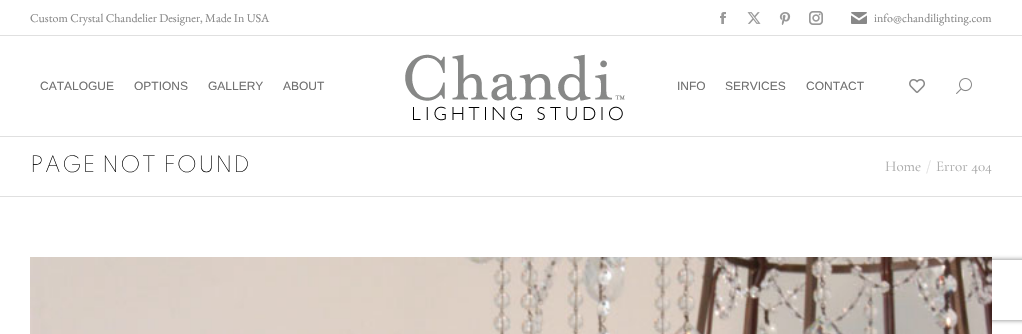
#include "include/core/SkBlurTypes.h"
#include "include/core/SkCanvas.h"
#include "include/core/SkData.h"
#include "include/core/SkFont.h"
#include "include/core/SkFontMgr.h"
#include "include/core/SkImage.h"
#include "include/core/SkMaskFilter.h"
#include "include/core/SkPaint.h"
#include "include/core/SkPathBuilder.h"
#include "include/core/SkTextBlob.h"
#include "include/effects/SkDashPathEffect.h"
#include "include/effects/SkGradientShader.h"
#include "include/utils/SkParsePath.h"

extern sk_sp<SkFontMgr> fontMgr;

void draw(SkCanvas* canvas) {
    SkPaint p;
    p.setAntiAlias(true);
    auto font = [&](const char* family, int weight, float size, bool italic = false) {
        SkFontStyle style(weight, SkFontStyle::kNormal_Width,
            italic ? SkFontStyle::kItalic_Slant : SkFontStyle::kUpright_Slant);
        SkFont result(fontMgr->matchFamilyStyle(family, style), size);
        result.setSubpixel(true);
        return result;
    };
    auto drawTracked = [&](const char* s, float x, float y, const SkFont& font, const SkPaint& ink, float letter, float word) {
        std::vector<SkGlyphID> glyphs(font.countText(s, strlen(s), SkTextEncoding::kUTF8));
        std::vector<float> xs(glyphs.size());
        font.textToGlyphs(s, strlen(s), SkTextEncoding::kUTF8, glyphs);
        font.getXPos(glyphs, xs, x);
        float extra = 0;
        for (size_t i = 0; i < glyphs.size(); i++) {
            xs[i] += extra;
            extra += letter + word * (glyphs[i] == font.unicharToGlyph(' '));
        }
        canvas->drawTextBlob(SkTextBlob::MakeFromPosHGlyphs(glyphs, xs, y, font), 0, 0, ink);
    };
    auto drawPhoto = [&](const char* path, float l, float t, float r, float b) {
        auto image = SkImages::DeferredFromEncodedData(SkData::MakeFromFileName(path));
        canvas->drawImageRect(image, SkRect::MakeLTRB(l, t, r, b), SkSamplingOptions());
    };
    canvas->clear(0xFFFFFFFF);
    p.setColor(0xFFE0E0E0);
    canvas->drawRect(SkRect::MakeLTRB(0, 136, 1022, 137), p);
    auto font1 = font("EB Garamond", 400, 12);
    p.setColor(0xFF888888);
    canvas->drawString("Custom Crystal Chandelier Designer, Made In USA", 30, 22, font1, p);
    drawPhoto("media/1.png", 720, 12, 726, 24);
    drawPhoto("media/2.png", 747, 12, 761, 24);
    drawPhoto("media/3.png", 779, 12, 791, 25);
    drawPhoto("media/4.png", 809, 11, 823, 25);
    drawPhoto("media/5.png", 851, 12, 867, 24);
    canvas->drawString("info@chandilighting.com", 874, 22, font1, p);
    p.setColor(0xFFE0E0E0);
    canvas->drawRect(SkRect::MakeLTRB(0, 35, 1022, 36), p);
    auto font2 = font("Liberation Sans", 400, 12);
    p.setColor(0xFF707070);
    {
        const struct { const char* s; float x, y; } items[] = {
            {"CATALOGUE", 40, 90},
            {"OPTIONS", 134, 90},
            {"GALLERY", 208, 90},
            {"ABOUT", 283, 90},
        };
        for (auto [s, x, y] : items) {
            canvas->drawString(s, x, y, font2, p);
        }
    }
    drawPhoto("media/6.png", 405, 54, 625, 121);
    {
        const struct { const char* s; float x, y; } items[] = {
            {"INFO", 677, 90},
            {"SERVICES", 725, 90},
            {"CONTACT", 806, 90},
        };
        for (auto [s, x, y] : items) {
            canvas->drawString(s, x, y, font2, p);
        }
    }
    drawPhoto("media/7.png", 909, 79, 925, 93);
    drawPhoto("media/8.png", 956, 78, 972, 94);
    p.setColor(0xFFE0E0E0);
    canvas->drawRect(SkRect::MakeLTRB(0, 196, 1022, 197), p);
    auto font3 = font("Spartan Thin", 100, 20);
    p.setColor(0xFF000000);
    drawTracked("PAGE NOT FOUND", 30, 172, font3, p, 1, 0);
    auto font4 = font("Cormorant Garamond", 400, 15);
    p.setColor(0xFFAAAAAA);
    canvas->drawString("Home", 885, 171, font4, p);
    p.setColor(0xFFE0E0E0);
    canvas->drawString("/", 926, 171, font4, p);
    p.setColor(0xFFAAAAAA);
    canvas->drawString("Error 404", 936, 171, font4, p);
    canvas->save();
    canvas->clipPath(SkPathBuilder(SkPathFillType::kEvenOdd).moveTo(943, 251).lineTo(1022, 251).lineTo(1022, 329).lineTo(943, 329).close().moveTo(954, 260).lineTo(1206, 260).cubicTo(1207, 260, 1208, 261, 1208, 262).lineTo(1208, 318).cubicTo(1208, 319, 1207, 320, 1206, 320).lineTo(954, 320).cubicTo(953, 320, 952, 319, 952, 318).lineTo(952, 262).cubicTo(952, 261, 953, 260, 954, 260).close().detach(), true);
    p.setColor(0xFF808080);
    p.setMaskFilter(SkMaskFilter::MakeBlur(kNormal_SkBlurStyle, 2.5f));
    canvas->drawRoundRect(SkRect::MakeLTRB(952, 260, 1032, 320), 2, 2, p);
    p.setMaskFilter(nullptr);
    canvas->restore();
    drawPhoto("media/9.png", 30, 257, 992, 334);
}
